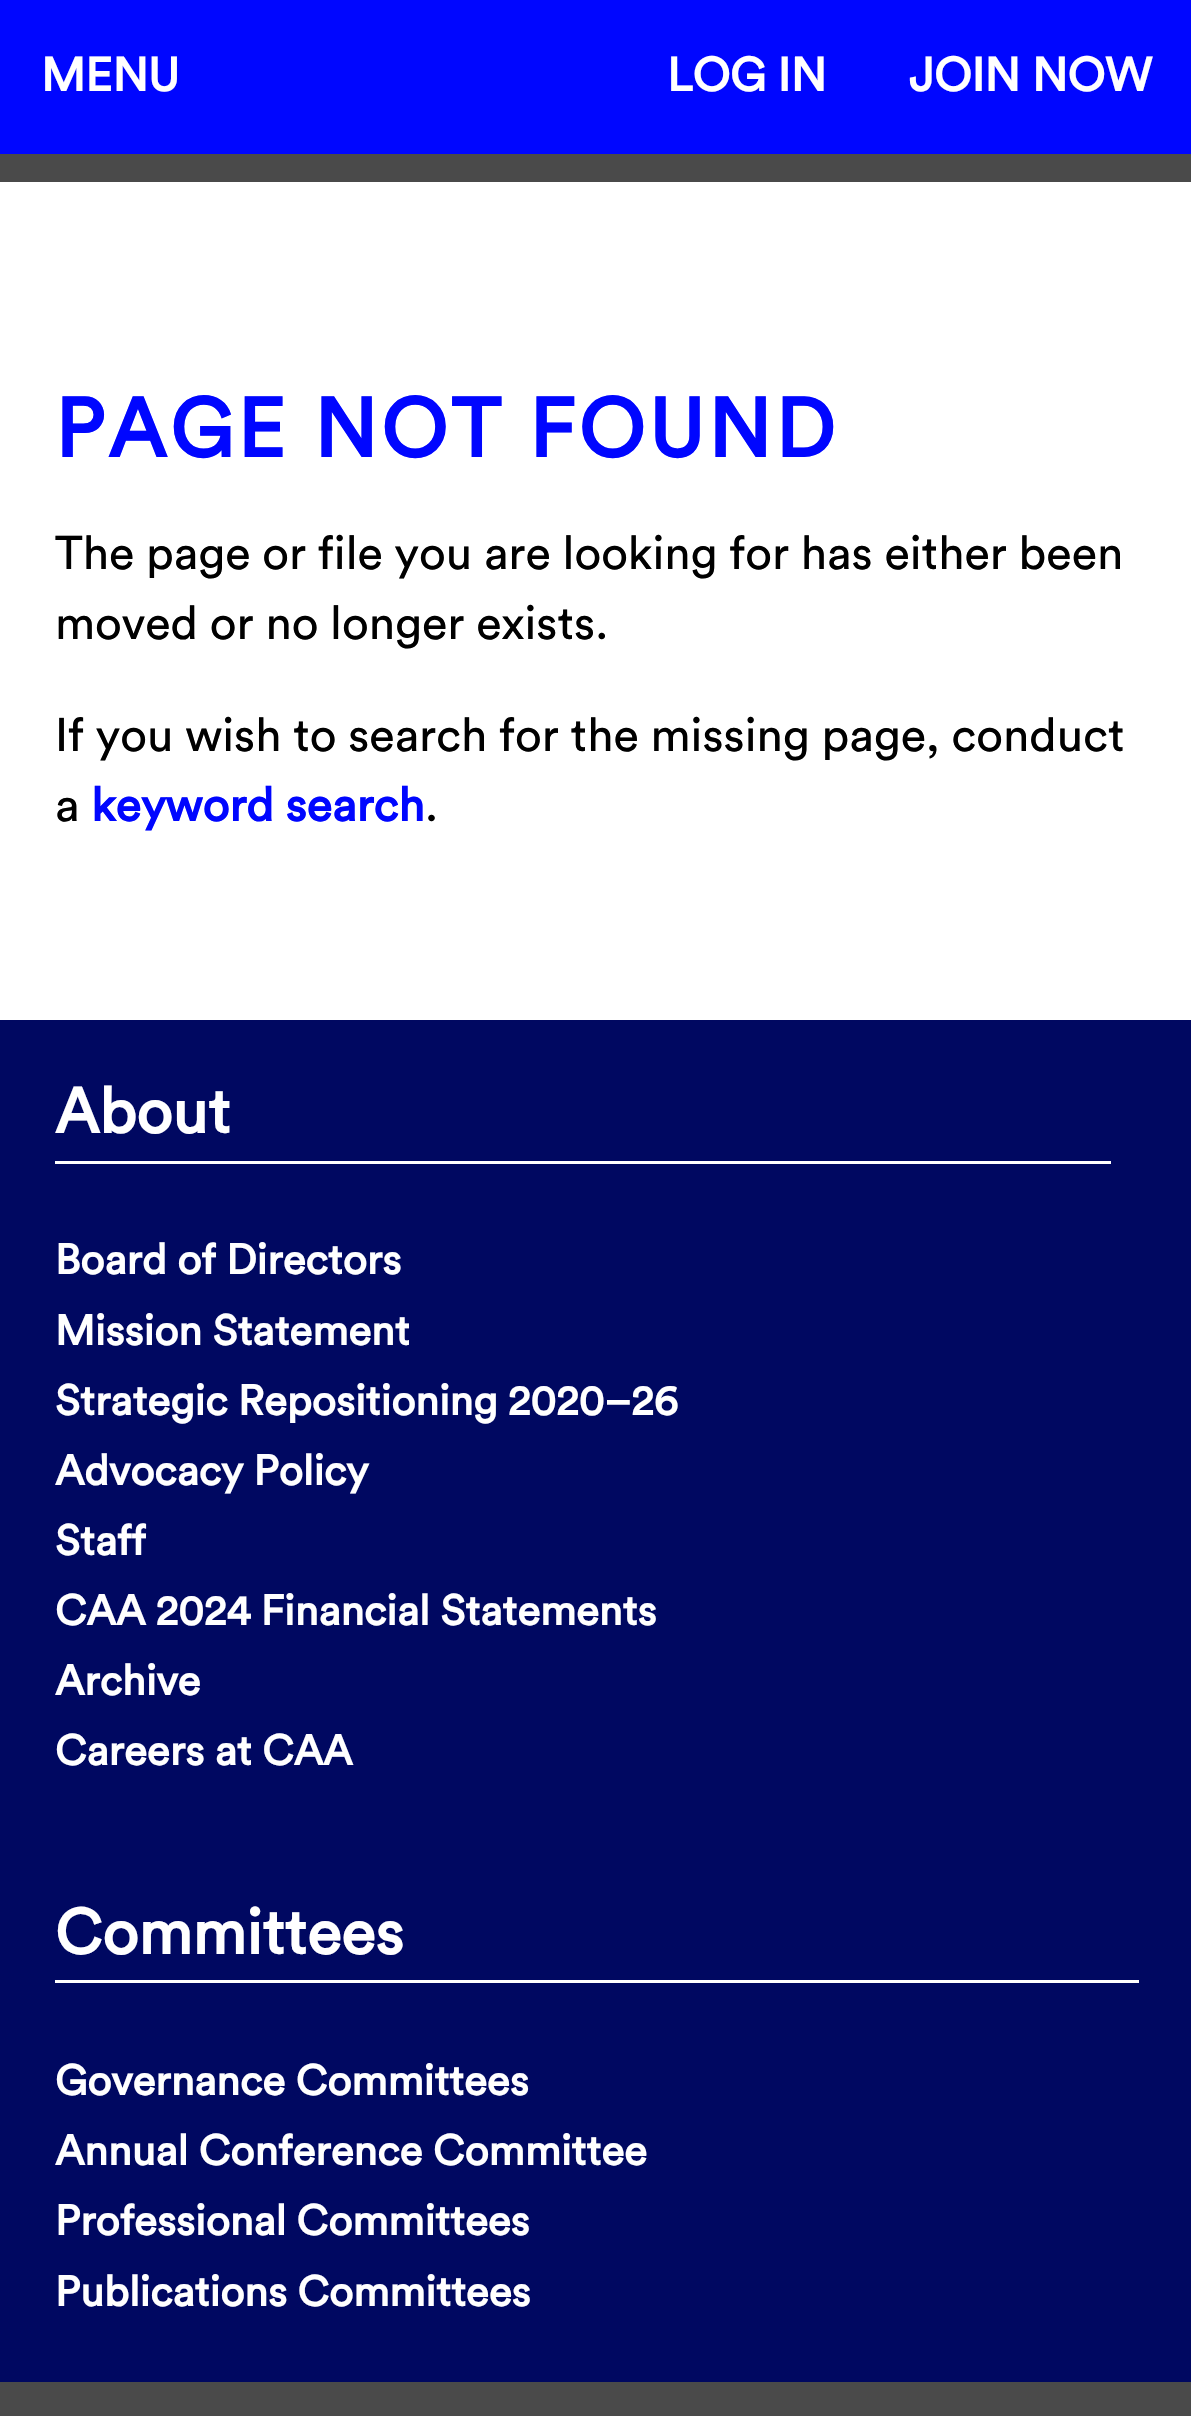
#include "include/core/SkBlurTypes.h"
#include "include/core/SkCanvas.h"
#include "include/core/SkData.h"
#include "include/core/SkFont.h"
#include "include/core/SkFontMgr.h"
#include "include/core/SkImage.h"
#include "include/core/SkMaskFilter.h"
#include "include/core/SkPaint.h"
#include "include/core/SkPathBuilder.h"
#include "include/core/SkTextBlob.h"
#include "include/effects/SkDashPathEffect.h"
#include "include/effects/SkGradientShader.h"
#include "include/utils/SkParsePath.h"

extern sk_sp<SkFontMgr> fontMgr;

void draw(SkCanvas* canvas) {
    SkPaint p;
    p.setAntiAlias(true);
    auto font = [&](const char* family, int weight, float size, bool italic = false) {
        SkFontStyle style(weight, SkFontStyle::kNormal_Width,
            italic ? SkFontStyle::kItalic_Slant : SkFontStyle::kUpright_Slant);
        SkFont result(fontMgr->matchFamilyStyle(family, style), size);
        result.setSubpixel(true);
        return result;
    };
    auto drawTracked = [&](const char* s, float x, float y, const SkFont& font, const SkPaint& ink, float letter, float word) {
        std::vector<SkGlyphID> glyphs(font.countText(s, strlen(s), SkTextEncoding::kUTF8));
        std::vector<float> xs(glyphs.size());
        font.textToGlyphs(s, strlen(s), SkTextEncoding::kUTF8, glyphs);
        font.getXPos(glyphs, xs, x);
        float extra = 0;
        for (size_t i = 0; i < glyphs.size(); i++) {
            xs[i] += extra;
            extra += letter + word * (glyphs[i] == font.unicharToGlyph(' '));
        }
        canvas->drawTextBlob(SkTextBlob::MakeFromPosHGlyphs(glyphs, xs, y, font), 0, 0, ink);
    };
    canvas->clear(0xFF4A4A4A);
    p.setColor(0xFF0006FF);
    canvas->drawRect(SkRect::MakeLTRB(0, 0, 1191, 154), p);
    auto font1 = font("Circular", 700, 46.75f);
    p.setColor(0xFFFFFFFF);
    {
        const struct { const char* s; float x, y; } items[] = {
            {"MENU", 41, 91},
            {"LOG IN", 667, 91},
            {"JOIN NOW", 909, 91},
        };
        for (auto [s, x, y] : items) {
            canvas->drawString(s, x, y, font1, p);
        }
    }
    canvas->drawRect(SkRect::MakeLTRB(0, 182, 1191, 1020), p);
    auto font2 = font("Circular", 700, 82.5f);
    p.setColor(0xFF0006FF);
    drawTracked("PAGE NOT FOUND", 55, 457, font2, p, 4.1f, 0);
    auto font3 = font("Circular", 400, 46.75f);
    p.setColor(0xFF000000);
    {
        const struct { const char* s; float x, y; } items[] = {
            {"The page or file you are looking for has either been", 55, 569},
            {"moved or no longer exists.", 55, 639},
            {"If you wish to search for the missing page, conduct", 55, 751},
            {"a", 55, 821},
        };
        for (auto [s, x, y] : items) {
            canvas->drawString(s, x, y, font3, p);
        }
    }
    p.setColor(0xFF0006FF);
    canvas->drawString("keyword search", 91, 821, font1, p);
    p.setColor(0xFF000000);
    canvas->drawString(".", 425, 821, font3, p);
    p.setColor(0xFF000861);
    canvas->drawRect(SkRect::MakeLTRB(0, 1020, 1191, 2382), p);
    p.setColor(0xFFFFFFFF);
    canvas->drawRect(SkRect::MakeLTRB(55, 1161, 1111, 1164), p);
    auto font4 = font("Circular", 700, 63);
    canvas->drawString("About", 55, 1133, font4, p);
    auto font5 = font("Circular", 700, 42.1f);
    {
        const struct { const char* s; float x, y; } items[] = {
            {"Board of Directors", 55, 1274},
            {"Mission Statement", 55, 1345},
            {"Strategic Repositioning 2020–26", 55, 1415},
            {"Advocacy Policy", 55, 1485},
            {"Staff", 55, 1555},
            {"CAA 2024 Financial Statements", 55, 1625},
            {"Archive", 55, 1695},
            {"Careers at CAA", 55, 1765},
        };
        for (auto [s, x, y] : items) {
            canvas->drawString(s, x, y, font5, p);
        }
    }
    canvas->drawRect(SkRect::MakeLTRB(55, 1980, 1139, 1983), p);
    canvas->drawString("Committees", 55, 1954, font4, p);
    {
        const struct { const char* s; float x, y; } items[] = {
            {"Governance Committees", 55, 2095},
            {"Annual Conference Committee", 55, 2165},
            {"Professional Committees", 55, 2235},
            {"Publications Committees", 55, 2306},
        };
        for (auto [s, x, y] : items) {
            canvas->drawString(s, x, y, font5, p);
        }
    }
}
